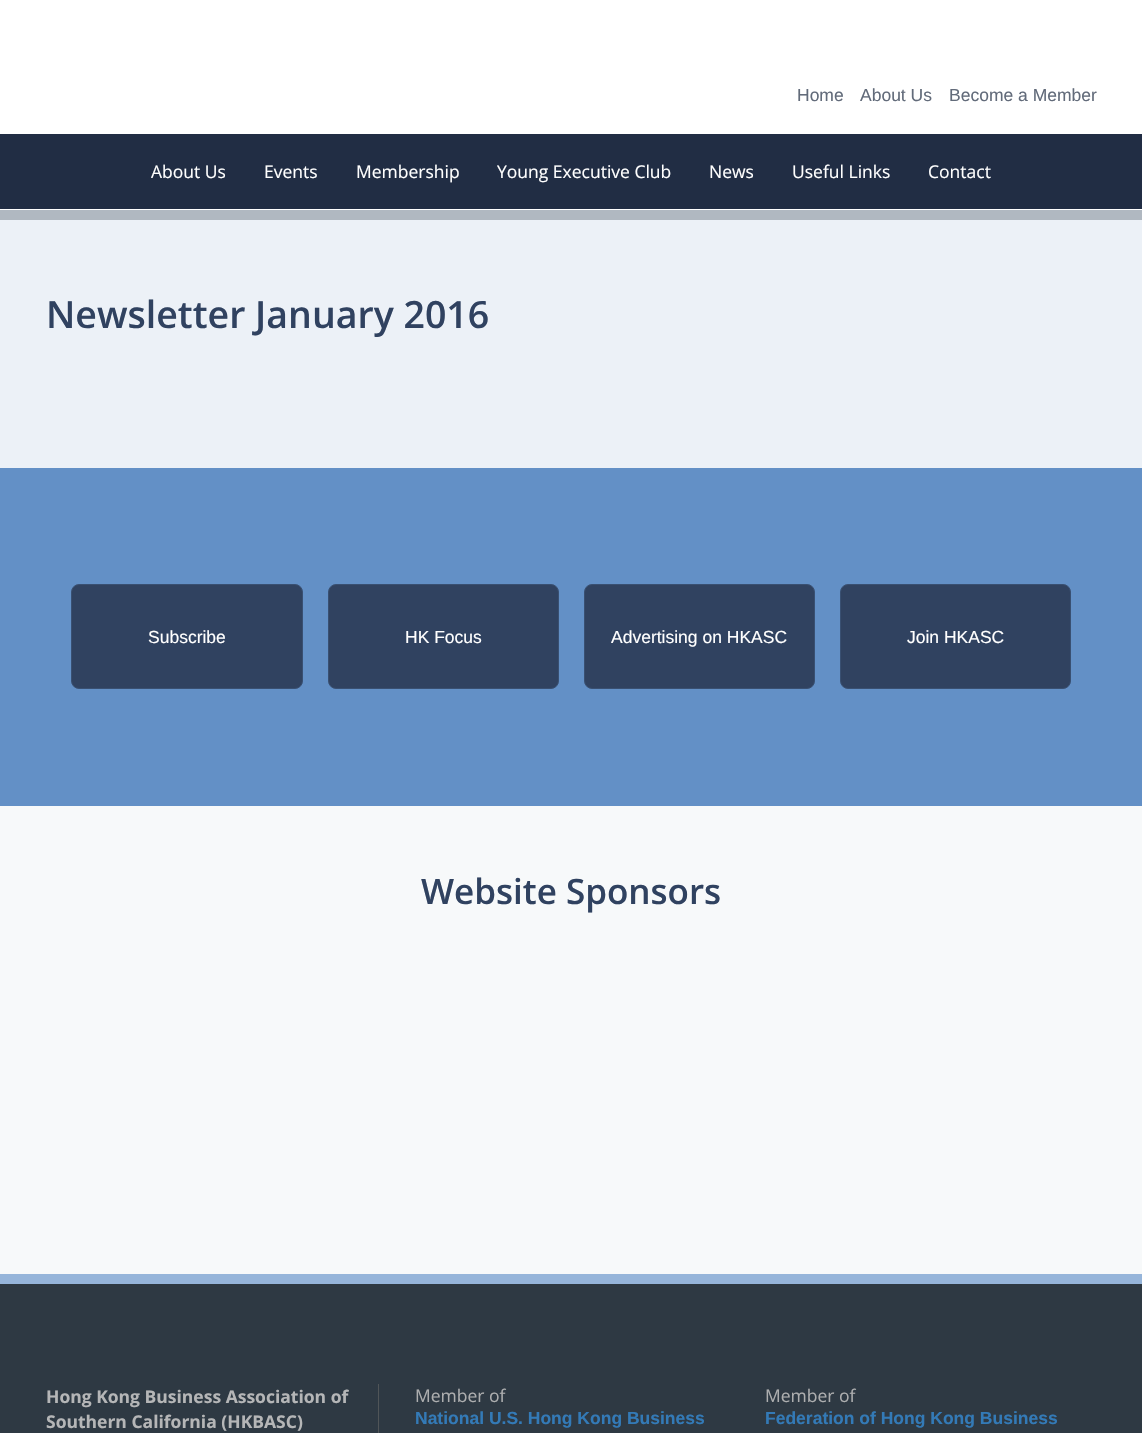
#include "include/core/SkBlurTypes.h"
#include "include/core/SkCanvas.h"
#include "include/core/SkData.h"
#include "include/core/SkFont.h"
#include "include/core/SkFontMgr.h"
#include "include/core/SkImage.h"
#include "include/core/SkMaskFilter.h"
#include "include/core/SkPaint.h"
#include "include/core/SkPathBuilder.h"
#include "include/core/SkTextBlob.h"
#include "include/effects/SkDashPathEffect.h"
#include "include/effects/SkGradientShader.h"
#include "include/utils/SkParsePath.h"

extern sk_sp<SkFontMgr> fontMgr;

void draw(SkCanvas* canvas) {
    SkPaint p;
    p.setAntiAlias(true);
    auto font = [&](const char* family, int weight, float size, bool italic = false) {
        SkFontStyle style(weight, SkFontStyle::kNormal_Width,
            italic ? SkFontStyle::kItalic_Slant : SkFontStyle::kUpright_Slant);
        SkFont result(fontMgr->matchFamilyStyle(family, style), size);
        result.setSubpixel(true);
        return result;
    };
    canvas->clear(0xFFFFFFFF);
    auto font1 = font("Liberation Sans", 400, 17.5f);
    p.setColor(0xFF626B7A);
    {
        const struct { const char* s; float x, y; } items[] = {
            {"Home", 797, 101},
            {"About Us", 860, 101},
            {"Become a Member", 949, 101},
        };
        for (auto [s, x, y] : items) {
            canvas->drawString(s, x, y, font1, p);
        }
    }
    p.setColor(0xFF212D44);
    canvas->drawRect(SkRect::MakeLTRB(0, 134, 1142, 209), p);
    auto font2 = font("Open Sans", 400, 17.5f);
    p.setColor(0xFFFFFFFF);
    {
        const struct { const char* s; float x, y; } items[] = {
            {"About Us", 151, 178},
            {"Events", 264, 178},
            {"Membership", 356, 178},
            {"Young Executive Club", 497, 178},
            {"News", 709, 178},
            {"Useful Links", 792, 178},
            {"Contact", 928, 178},
        };
        for (auto [s, x, y] : items) {
            canvas->drawString(s, x, y, font2, p);
        }
    }
    p.setColor(0xFFECF1F7);
    canvas->drawRect(SkRect::MakeLTRB(0, 220, 1142, 468), p);
    p.setColor(0xFFB0B8C1);
    canvas->drawRect(SkRect::MakeLTRB(0, 210, 1142, 220), p);
    auto font3 = font("Open Sans", 600, 37.5f);
    p.setColor(0xFF304260);
    canvas->drawString("Newsletter January 2016", 46, 328, font3, p);
    p.setColor(0xFF6390C6);
    canvas->drawRect(SkRect::MakeLTRB(0, 468, 1142, 806), p);
    p.setColor(0xFF304260);
    canvas->drawRoundRect(SkRect::MakeLTRB(71.5f, 584.5f, 302.5f, 688.5f), 7.5f, 7.5f, p);
    p.setStyle(SkPaint::kStroke_Style);
    p.setStrokeWidth(1);
    p.setColor(0xFF395072);
    canvas->drawRoundRect(SkRect::MakeLTRB(71.5f, 584.5f, 302.5f, 688.5f), 7.5f, 7.5f, p);
    p.setStyle(SkPaint::kFill_Style);
    p.setColor(0xFFFFFFFF);
    canvas->drawString("Subscribe", 148, 643, font1, p);
    p.setColor(0xFF304260);
    canvas->drawRoundRect(SkRect::MakeLTRB(328.5f, 584.5f, 558.5f, 688.5f), 7.5f, 7.5f, p);
    p.setStyle(SkPaint::kStroke_Style);
    p.setColor(0xFF395072);
    canvas->drawRoundRect(SkRect::MakeLTRB(328.5f, 584.5f, 558.5f, 688.5f), 7.5f, 7.5f, p);
    p.setStyle(SkPaint::kFill_Style);
    p.setColor(0xFFFFFFFF);
    canvas->drawString("HK Focus", 405, 643, font1, p);
    p.setColor(0xFF304260);
    canvas->drawRoundRect(SkRect::MakeLTRB(584.5f, 584.5f, 814.5f, 688.5f), 7.5f, 7.5f, p);
    p.setStyle(SkPaint::kStroke_Style);
    p.setColor(0xFF395072);
    canvas->drawRoundRect(SkRect::MakeLTRB(584.5f, 584.5f, 814.5f, 688.5f), 7.5f, 7.5f, p);
    p.setStyle(SkPaint::kFill_Style);
    p.setColor(0xFFFFFFFF);
    canvas->drawString("Advertising on HKASC", 611, 643, font1, p);
    p.setColor(0xFF304260);
    canvas->drawRoundRect(SkRect::MakeLTRB(840.5f, 584.5f, 1070.5f, 688.5f), 7.5f, 7.5f, p);
    p.setStyle(SkPaint::kStroke_Style);
    p.setColor(0xFF395072);
    canvas->drawRoundRect(SkRect::MakeLTRB(840.5f, 584.5f, 1070.5f, 688.5f), 7.5f, 7.5f, p);
    p.setStyle(SkPaint::kFill_Style);
    p.setColor(0xFFFFFFFF);
    canvas->drawString("Join HKASC", 907, 643, font1, p);
    p.setColor(0xFFF7F9FA);
    canvas->drawRect(SkRect::MakeLTRB(0, 806, 1142, 1274), p);
    auto font4 = font("Open Sans", 600, 35);
    p.setColor(0xFF304260);
    canvas->drawString("Website Sponsors", 421, 904, font4, p);
    {
        const struct { float l, t, r, b; SkColor color; } items[] = {
            {0, 1284, 1142, 1433, 0xFF2E3943},
            {0, 1274, 1142, 1284, 0xFF96B5DA},
            {378, 1384, 379, 1433, 0xFF505558},
        };
        for (auto [l, t, r, b, color] : items) {
            p.setColor(color);
            canvas->drawRect(SkRect::MakeLTRB(l, t, r, b), p);
        }
    }
    auto font5 = font("Open Sans", 700, 17.5f);
    p.setColor(0xFFB5B6B7);
    canvas->drawString("Hong Kong Business Association of", 46, 1403, font5, p);
    canvas->drawString("Southern California (HKBASC)", 46, 1428, font5, p);
    p.setColor(0xFFADAEAF);
    canvas->drawString("Member of", 415, 1402, font2, p);
    auto font6 = font("Liberation Sans", 700, 17.5f);
    p.setColor(0xFF337AB7);
    canvas->drawString("National U.S. Hong Kong Business", 415, 1424, font6, p);
    p.setColor(0xFFADAEAF);
    canvas->drawString("Member of", 765, 1402, font2, p);
    p.setColor(0xFF337AB7);
    canvas->drawString("Federation of Hong Kong Business", 765, 1424, font6, p);
}
